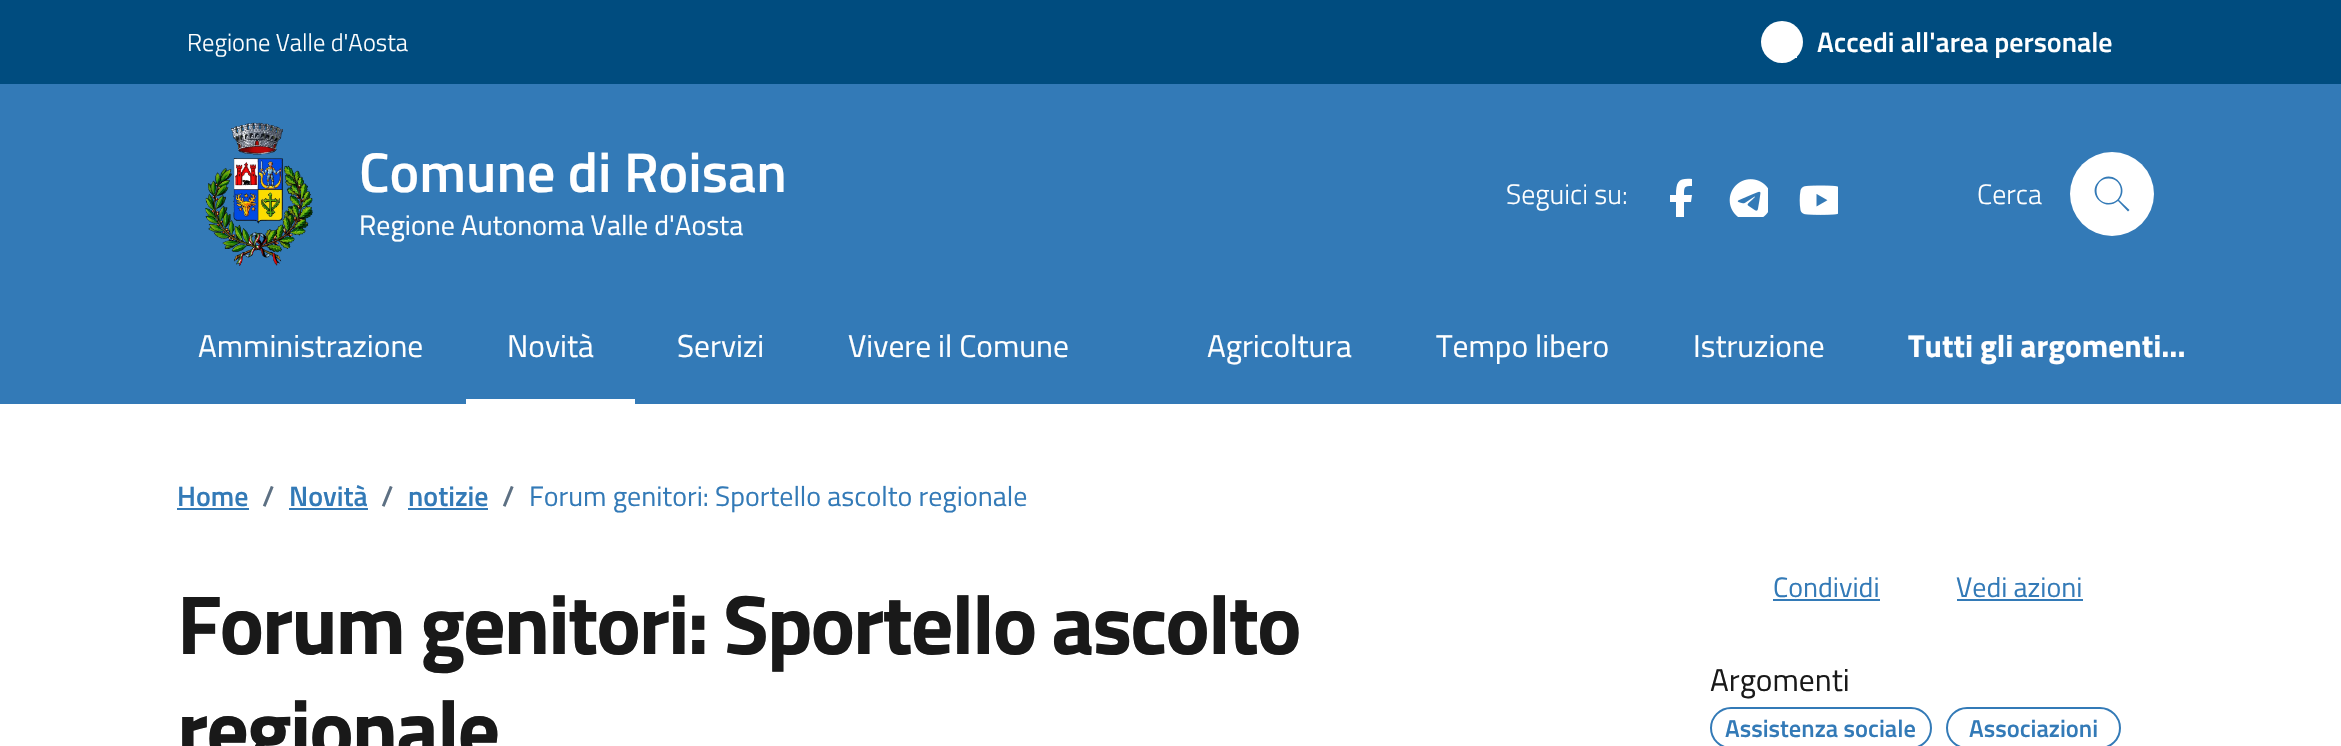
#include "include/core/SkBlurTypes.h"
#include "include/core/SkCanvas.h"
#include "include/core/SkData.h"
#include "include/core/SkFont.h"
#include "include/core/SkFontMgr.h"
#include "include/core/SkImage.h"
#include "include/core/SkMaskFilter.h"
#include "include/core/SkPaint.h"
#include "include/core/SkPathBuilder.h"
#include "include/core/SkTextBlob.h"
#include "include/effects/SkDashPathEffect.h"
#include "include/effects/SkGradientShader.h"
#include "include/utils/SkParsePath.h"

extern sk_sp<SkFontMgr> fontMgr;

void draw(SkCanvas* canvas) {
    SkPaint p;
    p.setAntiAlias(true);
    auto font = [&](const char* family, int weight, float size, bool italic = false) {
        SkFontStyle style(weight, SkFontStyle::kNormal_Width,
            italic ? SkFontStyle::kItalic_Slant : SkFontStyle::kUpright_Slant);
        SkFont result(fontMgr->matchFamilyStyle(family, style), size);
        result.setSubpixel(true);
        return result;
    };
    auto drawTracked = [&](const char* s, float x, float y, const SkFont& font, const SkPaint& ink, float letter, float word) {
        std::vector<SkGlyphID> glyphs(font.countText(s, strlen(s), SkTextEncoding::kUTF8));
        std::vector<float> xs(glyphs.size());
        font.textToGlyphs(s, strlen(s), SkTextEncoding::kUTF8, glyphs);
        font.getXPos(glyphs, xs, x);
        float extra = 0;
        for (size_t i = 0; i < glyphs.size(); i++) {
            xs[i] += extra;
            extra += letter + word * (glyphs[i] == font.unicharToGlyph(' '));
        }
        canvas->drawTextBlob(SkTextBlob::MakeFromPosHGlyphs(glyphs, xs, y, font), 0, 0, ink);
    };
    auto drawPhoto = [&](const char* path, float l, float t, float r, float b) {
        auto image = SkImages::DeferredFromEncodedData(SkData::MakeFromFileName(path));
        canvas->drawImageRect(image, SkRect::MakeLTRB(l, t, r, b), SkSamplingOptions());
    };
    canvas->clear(0xFFFFFFFF);
    p.setColor(0xFF004C7F);
    canvas->drawRect(SkRect::MakeLTRB(0, 0, 2341, 84), p);
    auto font1 = font("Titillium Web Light", 300, 24.5f);
    p.setColor(0xFFFFFFFF);
    canvas->drawString("Regione Valle d'Aosta", 187, 51, font1, p);
    canvas->drawCircle(1782, 42, 21, p);
    drawPhoto("media/1.png", 1795, 56, 1797, 58);
    auto font2 = font("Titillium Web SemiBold", 600, 28);
    canvas->drawString("Accedi all'area personale", 1817, 52, font2, p);
    p.setColor(0xFF337AB7);
    canvas->drawRect(SkRect::MakeLTRB(0, 84, 2341, 404), p);
    drawPhoto("media/2.png", 205, 122, 313, 266);
    auto font3 = font("Titillium Web SemiBold", 600, 56);
    p.setColor(0xFFFFFFFF);
    canvas->drawString("Comune di Roisan", 359, 192, font3, p);
    auto font4 = font("Titillium Web", 400, 28);
    canvas->drawString("Regione Autonoma Valle d'Aosta", 359, 235, font4, p);
    auto font5 = font("Titillium Web Light", 300, 28);
    canvas->drawString("Seguici su:", 1506, 204, font5, p);
    canvas->save();
    canvas->clipRect(SkRect::MakeLTRB(1656, 175, 1698, 217));
    canvas->drawPath(SkPathBuilder().moveTo(1684, 221).lineTo(1684, 202).lineTo(1691, 202).lineTo(1692, 195).lineTo(1684, 195).cubicTo(1684, 187, 1684, 186, 1692, 186).lineTo(1692, 179).cubicTo(1679, 178, 1676, 181, 1676, 195).lineTo(1670, 195).lineTo(1670, 202).lineTo(1676, 202).lineTo(1676, 221).close().detach(), p);
    canvas->restore();
    drawPhoto("media/3.png", 1729, 179, 1768, 217);
    drawPhoto("media/4.png", 1799, 185, 1838, 215);
    canvas->drawString("Cerca", 1977, 204, font5, p);
    canvas->drawCircle(2112, 194, 42, p);
    p.setColor(0xFF337AB7);
    canvas->drawPath(SkPathBuilder().moveTo(2129.5f, 210).lineTo(2119, 200).cubicTo(2130.5f, 186.5f, 2111.5f, 168, 2099, 181).cubicTo(2086, 193.5f, 2104.5f, 212.5f, 2118, 201).lineTo(2128, 211.5f).close().moveTo(2108.5f, 203).cubicTo(2092.5f, 203, 2092.5f, 178.5f, 2108.5f, 178.5f).cubicTo(2125, 178.5f, 2125, 203, 2108.5f, 203).close().detach(), p);
    auto font6 = font("Titillium Web", 400, 31.5f);
    p.setColor(0xFFFFFFFF);
    canvas->drawString("Amministrazione", 198, 357, font6, p);
    canvas->drawRect(SkRect::MakeLTRB(466, 399, 635, 404), p);
    {
        const struct { const char* s; float x, y; } items[] = {
            {"Novità", 507, 357},
            {"Servizi", 677, 357},
            {"Vivere il Comune", 848, 357},
            {"Agricoltura", 1207, 357},
            {"Tempo libero", 1436, 357},
            {"Istruzione", 1693, 357},
        };
        for (auto [s, x, y] : items) {
            canvas->drawString(s, x, y, font6, p);
        }
    }
    auto font7 = font("Titillium Web", 700, 31.5f);
    canvas->drawString("Tutti gli argomenti...", 1908, 357, font7, p);
    p.setColor(0xFF337AB7);
    canvas->drawString("Home", 177, 506, font2, p);
    canvas->drawRect(SkRect::MakeLTRB(177, 508, 249, 510), p);
    p.setColor(0xFF5D7083);
    canvas->drawString("/", 262, 506, font2, p);
    p.setColor(0xFF337AB7);
    canvas->drawString("Novità", 289, 506, font2, p);
    canvas->drawRect(SkRect::MakeLTRB(289, 508, 368, 510), p);
    p.setColor(0xFF5D7083);
    canvas->drawString("/", 381, 506, font2, p);
    p.setColor(0xFF337AB7);
    canvas->drawString("notizie", 408, 506, font2, p);
    canvas->drawRect(SkRect::MakeLTRB(408, 508, 488, 510), p);
    p.setColor(0xFF5D7083);
    canvas->drawString("/", 502, 506, font2, p);
    p.setColor(0xFF337AB7);
    canvas->drawString("Forum genitori: Sportello ascolto regionale", 529, 506, font4, p);
    auto font8 = font("Titillium Web", 700, 84);
    p.setColor(0xFF191919);
    drawTracked("Forum genitori: Sportello ascolto", 177, 654, font8, p, -2.1f, 0);
    drawTracked("regionale", 177, 759, font8, p, -2.1f, 0);
    p.setColor(0xFF337AB7);
    canvas->drawString("Condividi", 1773, 597, font4, p);
    canvas->drawRect(SkRect::MakeLTRB(1773, 599, 1880, 601), p);
    canvas->drawString("Vedi azioni", 1956, 597, font4, p);
    canvas->drawRect(SkRect::MakeLTRB(1957, 599, 2083, 601), p);
    p.setColor(0xFF191919);
    canvas->drawString("Argomenti", 1710, 691, font6, p);
    p.setStyle(SkPaint::kStroke_Style);
    p.setStrokeWidth(2);
    p.setColor(0xFF337AB7);
    canvas->drawRoundRect(SkRect::MakeLTRB(1711, 708, 1931, 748), 20, 20, p);
    auto font9 = font("Titillium Web SemiBold", 600, 24.5f);
    p.setStyle(SkPaint::kFill_Style);
    canvas->drawString("Assistenza sociale", 1725, 737, font9, p);
    p.setStyle(SkPaint::kStroke_Style);
    canvas->drawRoundRect(SkRect::MakeLTRB(1947, 708, 2120, 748), 20, 20, p);
    p.setStyle(SkPaint::kFill_Style);
    canvas->drawString("Associazioni", 1969, 737, font9, p);
}
